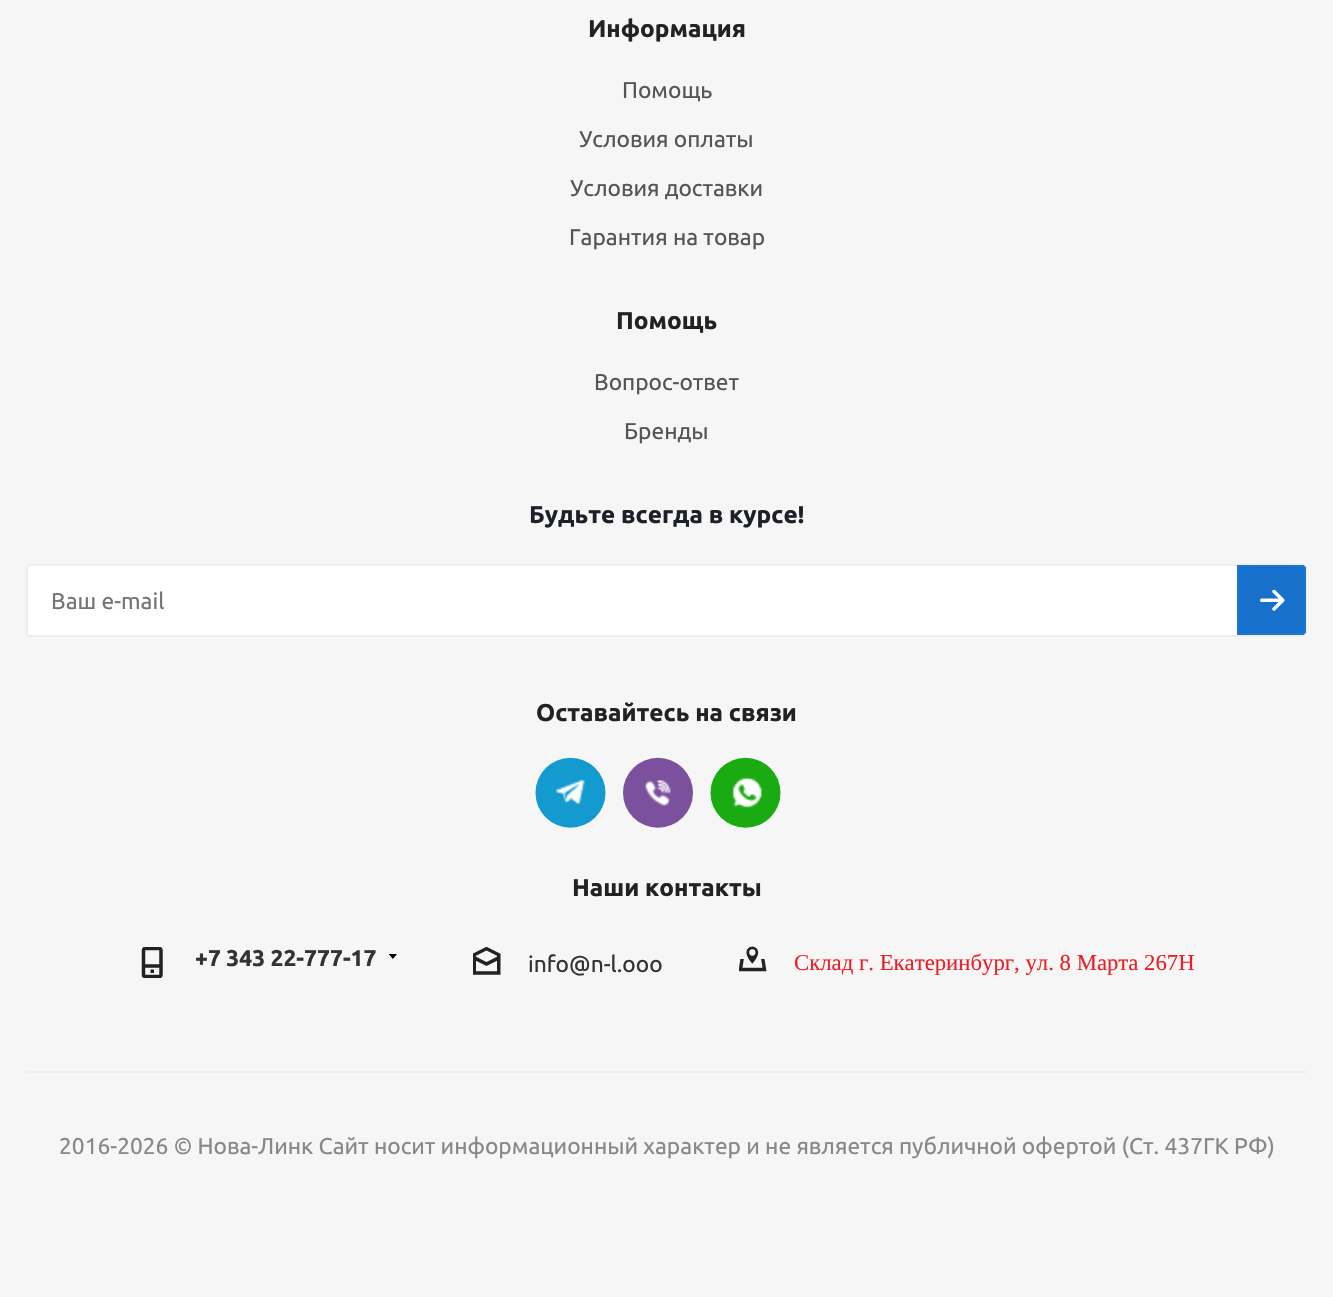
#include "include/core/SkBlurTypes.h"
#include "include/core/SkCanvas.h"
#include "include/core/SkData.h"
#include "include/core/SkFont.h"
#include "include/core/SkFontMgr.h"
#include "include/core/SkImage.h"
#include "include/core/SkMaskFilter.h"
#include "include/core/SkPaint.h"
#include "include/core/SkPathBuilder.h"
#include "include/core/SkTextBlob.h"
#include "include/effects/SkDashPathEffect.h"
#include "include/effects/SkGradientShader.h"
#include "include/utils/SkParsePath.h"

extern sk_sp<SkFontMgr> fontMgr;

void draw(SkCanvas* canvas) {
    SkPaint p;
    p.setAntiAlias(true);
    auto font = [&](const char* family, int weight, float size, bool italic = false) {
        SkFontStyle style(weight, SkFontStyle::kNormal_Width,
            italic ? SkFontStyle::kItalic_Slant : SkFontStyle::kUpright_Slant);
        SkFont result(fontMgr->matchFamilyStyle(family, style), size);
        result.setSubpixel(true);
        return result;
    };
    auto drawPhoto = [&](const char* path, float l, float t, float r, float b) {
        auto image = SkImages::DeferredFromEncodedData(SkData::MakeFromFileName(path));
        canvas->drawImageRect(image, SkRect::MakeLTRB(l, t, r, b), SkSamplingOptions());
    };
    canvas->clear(0xFFF6F6F7);
    auto font1 = font("Ubuntu", 700, 24.3f);
    p.setColor(0xFF222222);
    canvas->drawString("Информация", 588, 37, font1, p);
    auto font2 = font("Ubuntu", 400, 22.75f);
    p.setColor(0xFF555555);
    {
        const struct { const char* s; float x, y; } items[] = {
            {"Помощь", 622, 98},
            {"Условия оплаты", 579, 147},
            {"Условия доставки", 570, 196},
            {"Гарантия на товар", 569, 245},
        };
        for (auto [s, x, y] : items) {
            canvas->drawString(s, x, y, font2, p);
        }
    }
    p.setColor(0xFF222222);
    canvas->drawString("Помощь", 616, 329, font1, p);
    p.setColor(0xFF555555);
    canvas->drawString("Вопрос-ответ", 594, 390, font2, p);
    canvas->drawString("Бренды", 624, 439, font2, p);
    p.setColor(0xFF1D2029);
    canvas->drawString("Будьте всегда в курсе!", 529, 523, font1, p);
    p.setColor(0xFFFFFFFF);
    canvas->drawRoundRect(SkRect::MakeLTRB(27, 565, 1306, 636), 3, 3, p);
    p.setStyle(SkPaint::kStroke_Style);
    p.setStrokeWidth(2);
    p.setColor(0xFFEEEEEE);
    canvas->drawRoundRect(SkRect::MakeLTRB(27, 565, 1306, 636), 3, 3, p);
    p.setStyle(SkPaint::kFill_Style);
    p.setColor(0xFF757575);
    canvas->drawString("Ваш e-mail", 51, 609, font2, p);
    p.setColor(0xFF1771CA);
    canvas->drawPath(SkPathBuilder().moveTo(1237, 565).lineTo(1302, 565).cubicTo(1304, 565, 1306, 567, 1306, 569).lineTo(1306, 631).cubicTo(1306, 633, 1304, 635, 1302, 635).lineTo(1237, 635).close().detach(), p);
    drawPhoto("media/1.png", 1260, 589, 1285, 611);
    p.setStyle(SkPaint::kStroke_Style);
    p.setColor(0xFF1976D2);
    canvas->drawPath(SkPathBuilder().moveTo(1238, 566).lineTo(1302, 566).cubicTo(1303.5f, 566, 1305, 567.5f, 1305, 569).lineTo(1305, 631).cubicTo(1305, 632.5f, 1303.5f, 634, 1302, 634).lineTo(1238, 634).close().detach(), p);
    p.setStyle(SkPaint::kFill_Style);
    p.setColor(0xFF222222);
    canvas->drawString("Оставайтесь на связи", 536, 721, font1, p);
    drawPhoto("media/2.png", 535, 757, 606, 828);
    drawPhoto("media/3.png", 623, 757, 693, 828);
    drawPhoto("media/4.png", 710, 757, 781, 828);
    canvas->drawString("Наши контакты", 572, 896, font1, p);
    drawPhoto("media/5.png", 141, 947, 163, 978);
    auto font3 = font("Ubuntu", 700, 22.75f);
    p.setColor(0xFF333333);
    canvas->drawString("+7 343 22-777-17", 195, 966, font3, p);
    drawPhoto("media/6.png", 389, 954, 397, 959);
    drawPhoto("media/7.png", 473, 947, 501, 975);
    canvas->drawString("info@n-l.ooo", 528, 972, font2, p);
    drawPhoto("media/8.png", 739, 946, 767, 972);
    auto font4 = font("Liberation Serif", 400, 22.75f);
    p.setColor(0xFFEE1D24);
    canvas->drawString("Склад г. Екатеринбург, ул. 8 Марта 267Н", 794, 970, font4, p);
    p.setColor(0xFFEEEEEE);
    canvas->drawRect(SkRect::MakeLTRB(26, 1071, 1307, 1073), p);
    p.setColor(0xFF888888);
    canvas->drawString("2016-2026 © Нова-Линк Сайт носит информационный характер и не является публичной офертой (Ст. 437ГК РФ)", 59, 1154, font2, p);
}
